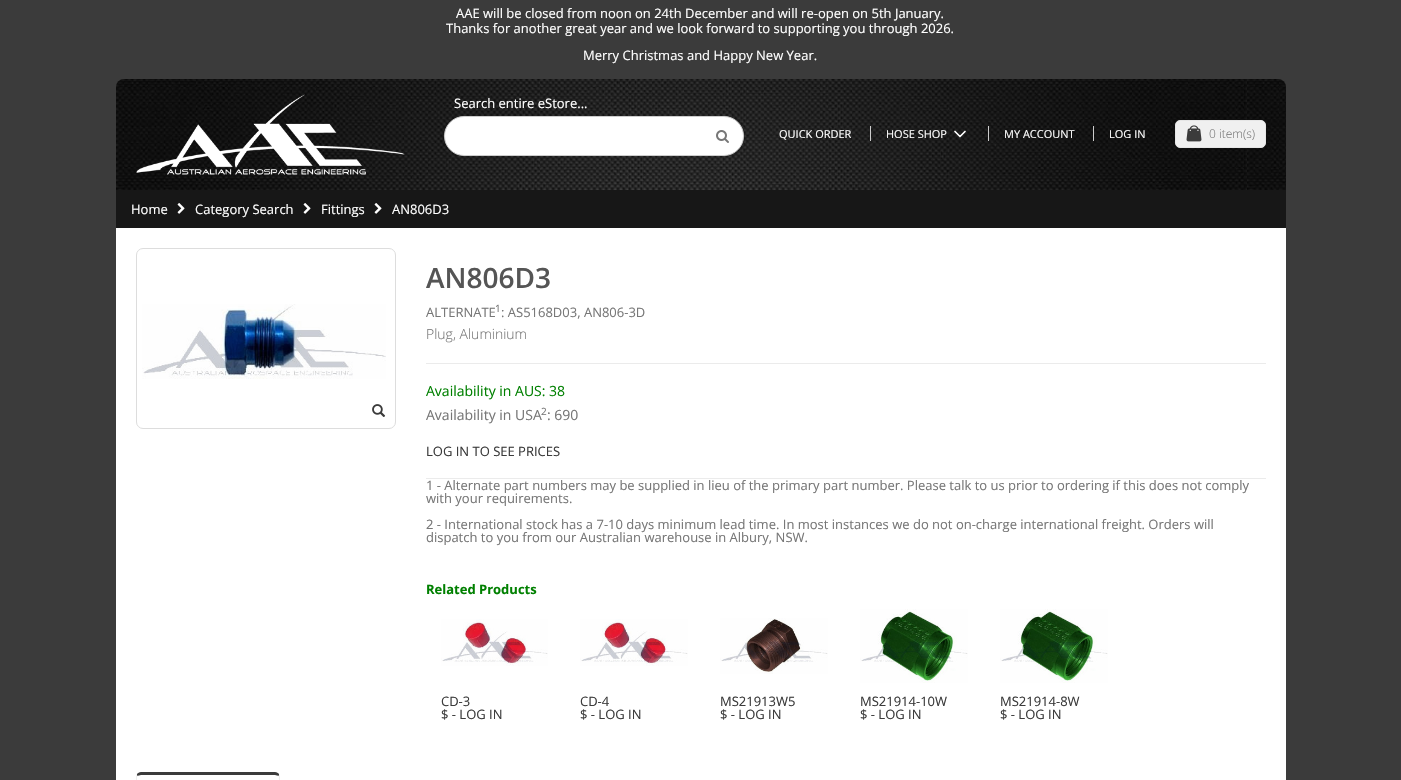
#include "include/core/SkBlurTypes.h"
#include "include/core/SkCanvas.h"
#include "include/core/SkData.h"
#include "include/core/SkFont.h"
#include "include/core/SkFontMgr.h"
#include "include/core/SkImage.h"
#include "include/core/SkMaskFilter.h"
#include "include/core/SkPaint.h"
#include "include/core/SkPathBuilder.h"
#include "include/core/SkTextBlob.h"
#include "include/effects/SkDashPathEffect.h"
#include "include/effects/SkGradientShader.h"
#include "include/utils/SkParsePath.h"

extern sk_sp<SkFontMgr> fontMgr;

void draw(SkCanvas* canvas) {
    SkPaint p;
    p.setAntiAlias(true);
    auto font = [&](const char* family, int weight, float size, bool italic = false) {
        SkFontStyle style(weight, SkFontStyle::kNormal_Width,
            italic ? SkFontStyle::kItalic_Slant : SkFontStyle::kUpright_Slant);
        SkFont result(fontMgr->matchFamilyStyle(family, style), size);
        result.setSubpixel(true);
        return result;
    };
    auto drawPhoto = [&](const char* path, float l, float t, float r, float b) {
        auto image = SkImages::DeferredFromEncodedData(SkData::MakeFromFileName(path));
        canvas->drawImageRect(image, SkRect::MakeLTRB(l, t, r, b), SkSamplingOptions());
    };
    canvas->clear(0xFF3B3B3B);
    auto font1 = font("Open Sans", 400, 13);
    p.setColor(0xFFFFFFFF);
    {
        const struct { const char* s; float x, y; } items[] = {
            {"AAE will be closed from noon on 24th December and will re-open on 5th January.", 456, 18},
            {"Thanks for another great year and we look forward to supporting you through 2026.", 446, 33},
            {"Merry Christmas and Happy New Year.", 583, 60},
        };
        for (auto [s, x, y] : items) {
            canvas->drawString(s, x, y, font1, p);
        }
    }
    drawPhoto("media/1.png", 116, 79, 1286, 190);
    drawPhoto("media/2.png", 136, 94, 405, 175);
    canvas->drawString("Search entire eStore...", 454, 108, font1, p);
    canvas->drawRoundRect(SkRect::MakeLTRB(444.5f, 116.5f, 743.5f, 155.5f), 19.5f, 19.5f, p);
    p.setStyle(SkPaint::kStroke_Style);
    p.setStrokeWidth(1);
    p.setColor(0xFFCCCCCC);
    canvas->drawRoundRect(SkRect::MakeLTRB(444.5f, 116.5f, 743.5f, 155.5f), 19.5f, 19.5f, p);
    drawPhoto("media/3.png", 716, 130, 729, 143);
    auto font2 = font("Open Sans", 400, 11);
    p.setStyle(SkPaint::kFill_Style);
    p.setColor(0xFFFFFFFF);
    canvas->drawString("QUICK ORDER", 779, 138, font2, p);
    canvas->drawString("HOSE SHOP", 886, 138, font2, p);
    p.setColor(0xFFCCCCCC);
    canvas->drawRect(SkRect::MakeLTRB(870, 126, 871, 141), p);
    p.setStyle(SkPaint::kStroke_Style);
    p.setStrokeWidth(1.7f);
    p.setStrokeCap(SkPaint::kRound_Cap);
    p.setStrokeJoin(SkPaint::kRound_Join);
    p.setColor(0xFFFFFFFF);
    canvas->drawPath(SkPathBuilder().moveTo(955, 131.5f).lineTo(960, 136.5f).lineTo(965, 131.5f).detach(), p);
    p.setStyle(SkPaint::kFill_Style);
    canvas->drawString("MY ACCOUNT", 1004, 138, font2, p);
    p.setColor(0xFFCCCCCC);
    canvas->drawRect(SkRect::MakeLTRB(988, 126, 989, 141), p);
    p.setColor(0xFFFFFFFF);
    canvas->drawString("LOG IN", 1109, 138, font2, p);
    p.setColor(0xFFCCCCCC);
    canvas->drawRect(SkRect::MakeLTRB(1093, 126, 1094, 141), p);
    p.setColor(0xFFF0F0F0);
    canvas->drawRoundRect(SkRect::MakeLTRB(1175.5f, 120.5f, 1265.5f, 147.5f), 4.5f, 4.5f, p);
    p.setStyle(SkPaint::kStroke_Style);
    p.setStrokeWidth(1);
    p.setStrokeCap(SkPaint::kButt_Cap);
    p.setStrokeJoin(SkPaint::kMiter_Join);
    p.setColor(0xFFE6E6E6);
    canvas->drawRoundRect(SkRect::MakeLTRB(1175.5f, 120.5f, 1265.5f, 147.5f), 4.5f, 4.5f, p);
    drawPhoto("media/4.png", 1186, 125, 1202, 142);
    auto font3 = font("Open Sans", 300, 12);
    p.setStyle(SkPaint::kFill_Style);
    p.setColor(0xFF777777);
    canvas->drawString("0 item(s)", 1209, 138, font3, p);
    p.setColor(0xFF171717);
    canvas->drawRect(SkRect::MakeLTRB(116, 190, 1286, 228), p);
    p.setColor(0xFFFFFFFF);
    canvas->drawString("Home", 131, 214, font1, p);
    drawPhoto("media/5.png", 177, 203, 185, 214);
    canvas->drawString("Category Search", 195, 214, font1, p);
    drawPhoto("media/5.png", 303, 203, 311, 214);
    canvas->drawString("Fittings", 321, 214, font1, p);
    drawPhoto("media/5.png", 374, 203, 382, 214);
    canvas->drawString("AN806D3", 392, 214, font1, p);
    canvas->drawRect(SkRect::MakeLTRB(116, 228, 1286, 780), p);
    p.setStyle(SkPaint::kStroke_Style);
    p.setColor(0xFFDDDDDD);
    canvas->drawRoundRect(SkRect::MakeLTRB(136.5f, 248.5f, 395.5f, 428.5f), 6.5f, 6.5f, p);
    drawPhoto("media/6.png", 142, 304, 386, 379);
    drawPhoto("media/7.png", 372, 404, 386, 417);
    auto font4 = font("Open Sans", 600, 28);
    p.setStyle(SkPaint::kFill_Style);
    p.setColor(0xFF555555);
    canvas->drawString("AN806D3", 426, 288, font4, p);
    p.setColor(0xFF777777);
    canvas->drawString("ALTERNATE", 426, 317, font1, p);
    auto font5 = font("Open Sans", 400, 10);
    canvas->drawString("1", 495, 312, font5, p);
    canvas->drawString(": AS5168D03, AN806-3D", 501, 317, font1, p);
    p.setColor(0xFFEBEBEB);
    canvas->drawRect(SkRect::MakeLTRB(426, 363, 1266, 364), p);
    auto font6 = font("Open Sans", 300, 14);
    p.setColor(0xFF777777);
    canvas->drawString("Plug, Aluminium", 426, 339, font6, p);
    auto font7 = font("Open Sans", 400, 14);
    p.setColor(0xFF008000);
    canvas->drawString("Availability in AUS: 38", 426, 396, font7, p);
    p.setColor(0xFF777777);
    canvas->drawString("Availability in USA", 426, 420, font7, p);
    canvas->drawString("2", 541, 415, font5, p);
    canvas->drawString(": 690", 547, 420, font7, p);
    p.setColor(0xFF3B3B3B);
    canvas->drawString("LOG IN TO SEE PRICES", 426, 456, font1, p);
    p.setColor(0xFFEBEBEB);
    canvas->drawRect(SkRect::MakeLTRB(426, 478, 1266, 479), p);
    p.setColor(0xFF777777);
    {
        const struct { const char* s; float x, y; } items[] = {
            {"1 - Alternate part numbers may be supplied in lieu of the primary part number. Please talk to us prior to ordering if this does not comply", 426, 490},
            {"with your requirements.", 426, 503},
            {"2 - International stock has a 7-10 days minimum lead time. In most instances we do not on-charge international freight. Orders will", 426, 529},
            {"dispatch to you from our Australian warehouse in Albury, NSW.", 426, 542},
        };
        for (auto [s, x, y] : items) {
            canvas->drawString(s, x, y, font1, p);
        }
    }
    auto font8 = font("Open Sans", 700, 13);
    p.setColor(0xFF008000);
    canvas->drawString("Related Products", 426, 594, font8, p);
    drawPhoto("media/8.png", 441, 619, 548, 666);
    p.setColor(0xFF3B3B3B);
    canvas->drawString("CD-3", 441, 706, font1, p);
    canvas->drawString("$ - LOG IN", 441, 719, font1, p);
    drawPhoto("media/9.png", 580, 619, 688, 666);
    canvas->drawString("CD-4", 580, 706, font1, p);
    canvas->drawString("$ - LOG IN", 580, 719, font1, p);
    drawPhoto("media/10.png", 720, 618, 828, 674);
    canvas->drawString("MS21913W5", 720, 706, font1, p);
    canvas->drawString("$ - LOG IN", 720, 719, font1, p);
    drawPhoto("media/11.png", 860, 609, 968, 683);
    canvas->drawString("MS21914-10W", 860, 706, font1, p);
    canvas->drawString("$ - LOG IN", 860, 719, font1, p);
    drawPhoto("media/11.png", 1000, 609, 1108, 683);
    canvas->drawString("MS21914-8W", 1000, 706, font1, p);
    canvas->drawString("$ - LOG IN", 1000, 719, font1, p);
    canvas->drawPath(SkPathBuilder().moveTo(141, 772).lineTo(275, 772).cubicTo(277, 772, 278, 773, 279, 774).lineTo(279, 776).cubicTo(278, 776, 276, 775, 275, 775).lineTo(141, 775).cubicTo(140, 775, 138, 776, 137, 776).lineTo(137, 774).cubicTo(138, 773, 139, 772, 141, 772).close().detach(), p);
    p.setColor(0xFFEEEEEE);
    canvas->drawPath(SkPathBuilder().moveTo(279.5f, 774).lineTo(278.5f, 776).lineTo(279, 777).lineTo(279, 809).lineTo(280, 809).lineTo(280, 777).cubicTo(280, 776, 279.5f, 775, 279.5f, 774).close().detach(), p);
    canvas->drawPath(SkPathBuilder().moveTo(136, 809).lineTo(137, 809).lineTo(137, 777).lineTo(137.5f, 776).lineTo(136.5f, 774).cubicTo(136.5f, 775, 136, 776, 136, 777).close().detach(), p);
}
